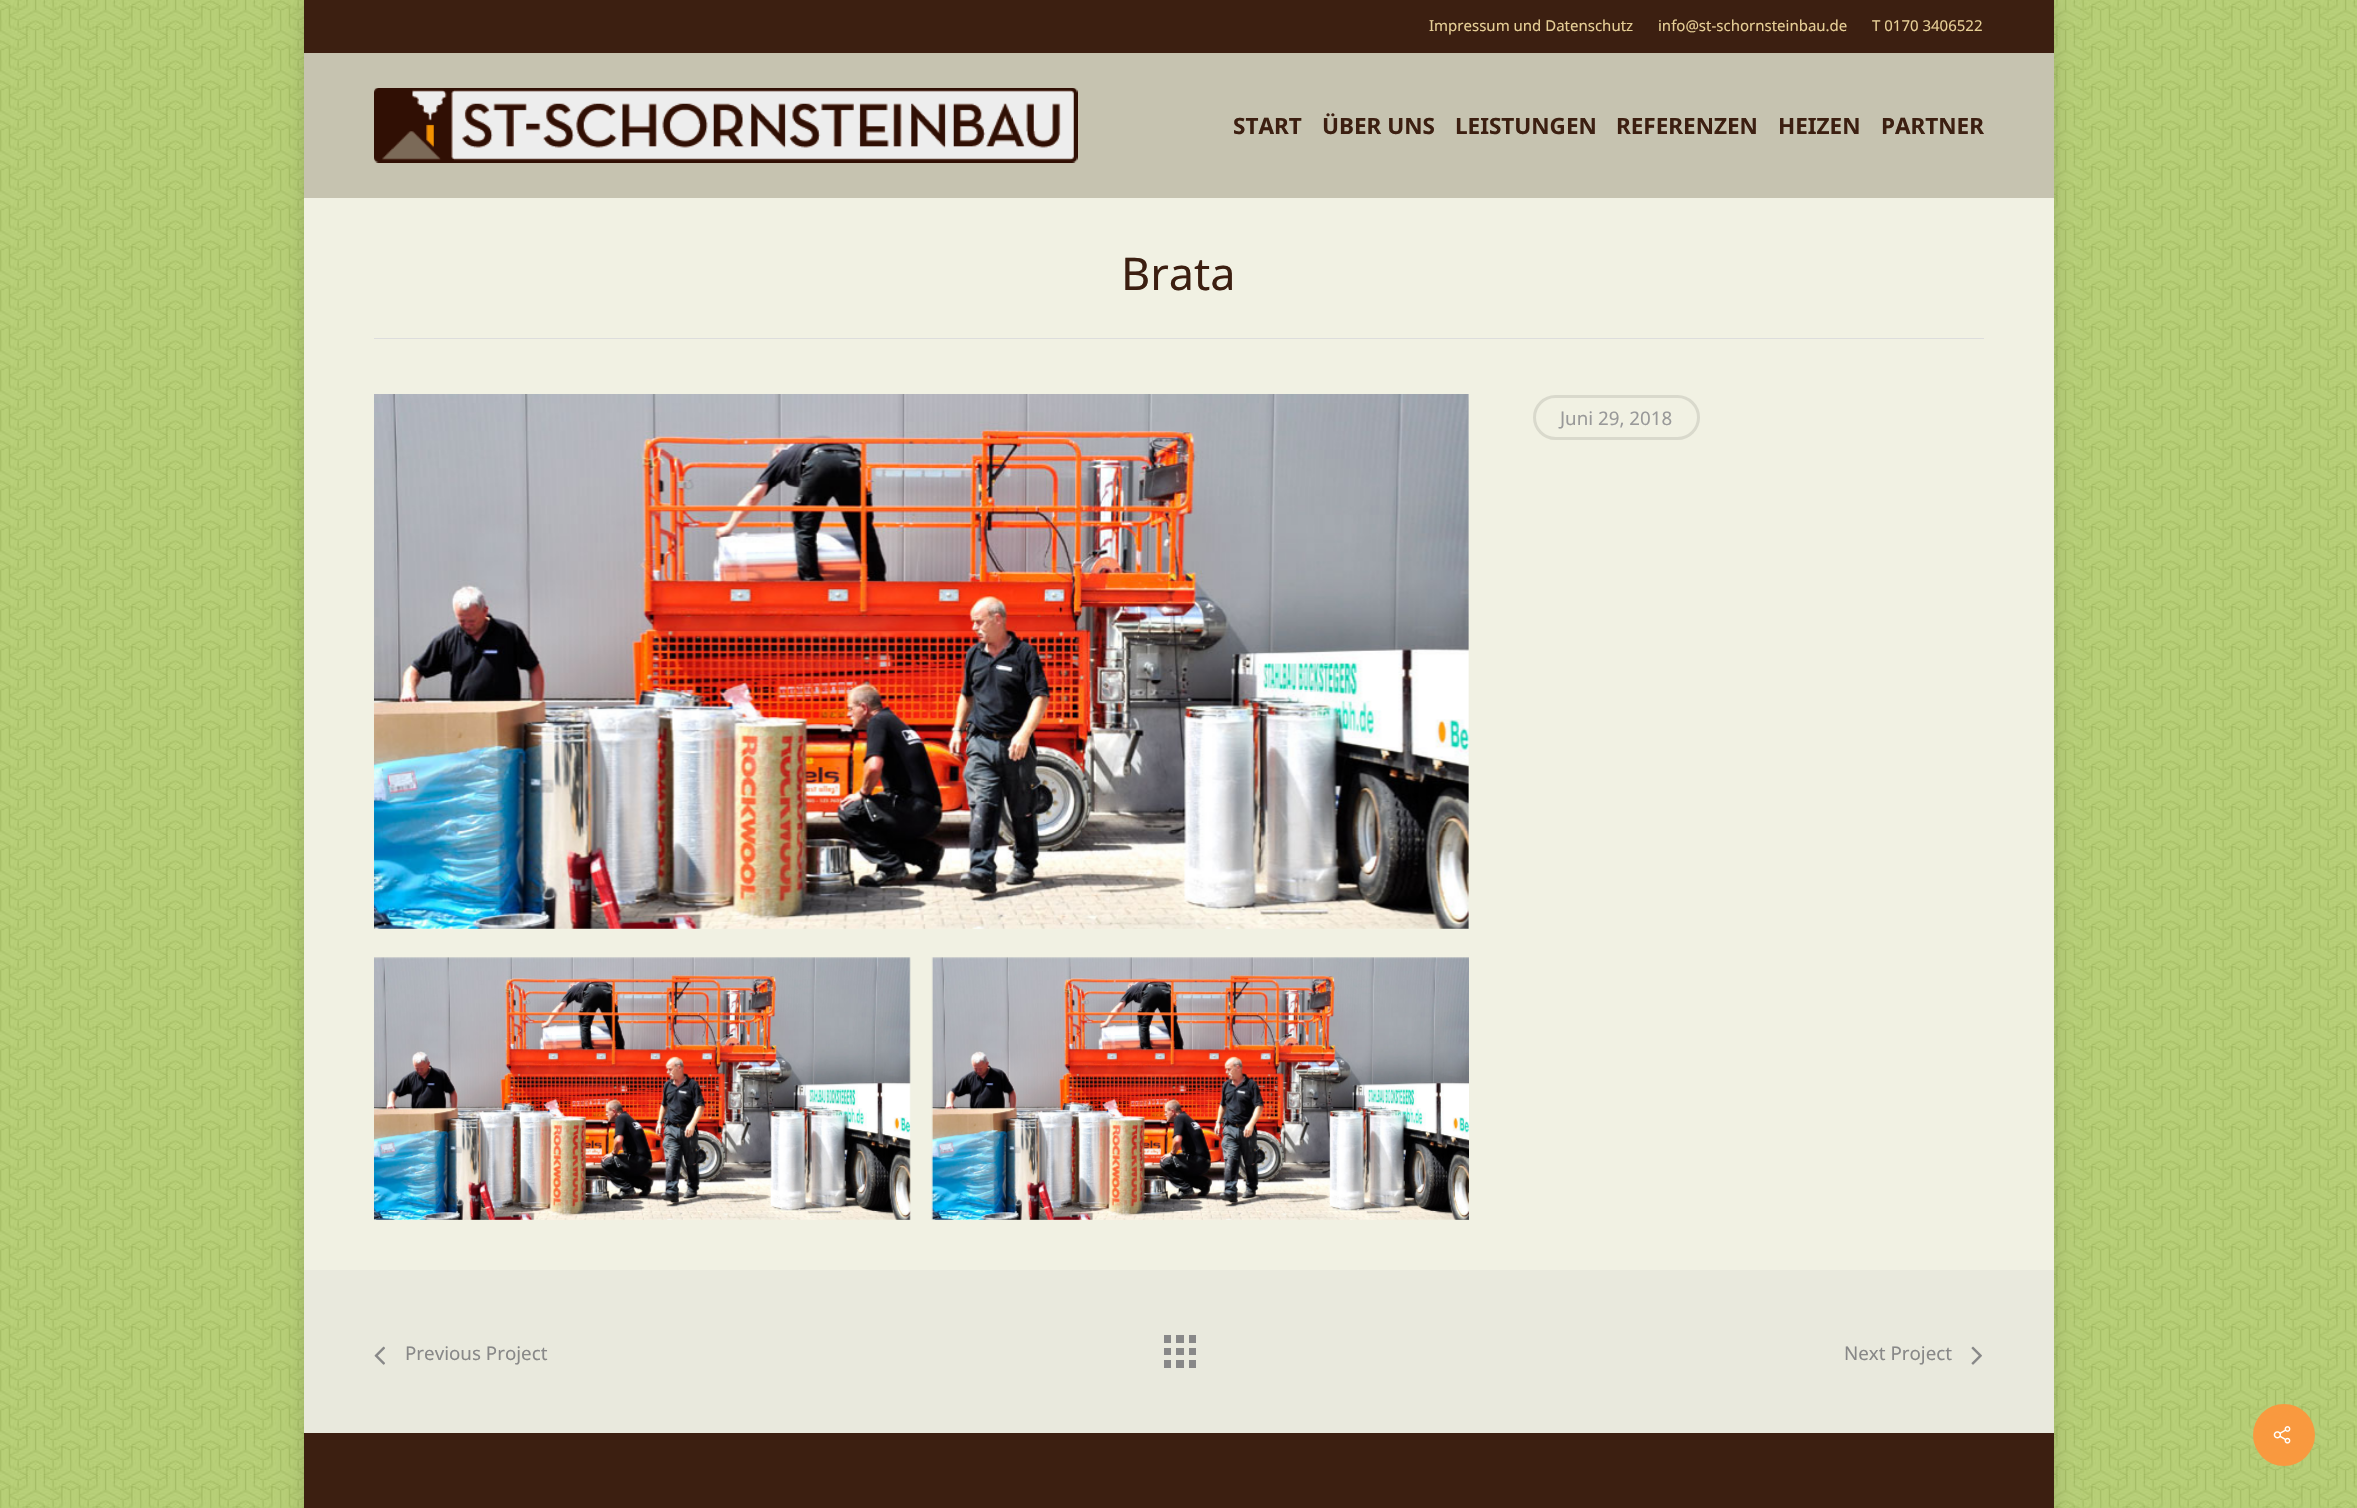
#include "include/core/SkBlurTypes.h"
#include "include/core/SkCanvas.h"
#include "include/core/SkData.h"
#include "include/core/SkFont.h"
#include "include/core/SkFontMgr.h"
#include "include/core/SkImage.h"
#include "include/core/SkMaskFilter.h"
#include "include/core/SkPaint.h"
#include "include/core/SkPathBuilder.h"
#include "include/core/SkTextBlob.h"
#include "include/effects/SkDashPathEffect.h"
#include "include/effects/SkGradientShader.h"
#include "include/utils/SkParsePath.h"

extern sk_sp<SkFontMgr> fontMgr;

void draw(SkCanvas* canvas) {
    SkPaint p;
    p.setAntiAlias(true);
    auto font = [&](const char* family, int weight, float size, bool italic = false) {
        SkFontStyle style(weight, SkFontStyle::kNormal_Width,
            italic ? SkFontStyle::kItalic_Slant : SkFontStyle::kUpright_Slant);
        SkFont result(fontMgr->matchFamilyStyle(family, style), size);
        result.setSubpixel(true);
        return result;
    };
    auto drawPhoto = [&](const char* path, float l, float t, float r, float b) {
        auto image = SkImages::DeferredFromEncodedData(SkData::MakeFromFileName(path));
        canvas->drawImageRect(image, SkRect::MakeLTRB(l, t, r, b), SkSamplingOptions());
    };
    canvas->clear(0xFFFFFFFF);
    drawPhoto("media/1.png", 0, 0, 2357, 1508);
    p.setColor(0x26000000);
    p.setMaskFilter(SkMaskFilter::MakeBlur(kNormal_SkBlurStyle, 9.5f));
    canvas->drawRect(SkRect::MakeLTRB(304, 0, 2054, 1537), p);
    p.setMaskFilter(nullptr);
    p.setColor(0xFF3C1F11);
    canvas->drawRect(SkRect::MakeLTRB(304, 0, 2054, 53), p);
    auto font1 = font("Noto Sans", 400, 15);
    p.setColor(0xFFE6CE95);
    {
        const struct { const char* s; float x, y; } items[] = {
            {"Impressum und Datenschutz", 1429, 31},
            {"info@st-schornsteinbau.de", 1658, 31},
            {"T 0170 3406522", 1872, 31},
        };
        for (auto [s, x, y] : items) {
            canvas->drawString(s, x, y, font1, p);
        }
    }
    p.setColor(0xFFC6C3B0);
    canvas->drawRect(SkRect::MakeLTRB(304, 53, 2054, 198), p);
    drawPhoto("media/2.png", 374, 88, 1078, 163);
    auto font2 = font("Noto Sans", 700, 22.5f);
    p.setColor(0xFF3C1F11);
    {
        const struct { const char* s; float x, y; } items[] = {
            {"START", 1233, 134},
            {"ÜBER UNS", 1322, 134},
            {"LEISTUNGEN", 1455, 134},
            {"REFERENZEN", 1616, 134},
            {"HEIZEN", 1778, 134},
            {"PARTNER", 1881, 134},
        };
        for (auto [s, x, y] : items) {
            canvas->drawString(s, x, y, font2, p);
        }
    }
    p.setColor(0xFFF1F1E3);
    canvas->drawRect(SkRect::MakeLTRB(304, 198, 2054, 1270), p);
    p.setColor(0xFFDDDDDD);
    canvas->drawRect(SkRect::MakeLTRB(374, 338, 1984, 339), p);
    auto font3 = font("Noto Sans", 400, 45);
    p.setColor(0xFF3C1F11);
    canvas->drawString("Brata", 1121, 290, font3, p);
    drawPhoto("media/3.png", 374, 394, 1469, 929);
    drawPhoto("media/4.png", 374, 957, 911, 1220);
    drawPhoto("media/5.png", 931, 957, 1469, 1220);
    p.setStyle(SkPaint::kStroke_Style);
    p.setStrokeWidth(3);
    p.setColor(0xFFD9D9CC);
    canvas->drawRoundRect(SkRect::MakeLTRB(1534.5f, 396.5f, 1698.5f, 438.5f), 21, 21, p);
    auto font4 = font("Noto Sans", 400, 18.75f);
    p.setStyle(SkPaint::kFill_Style);
    p.setColor(0xFF999999);
    canvas->drawString("Juni 29, 2018", 1560, 425, font4, p);
    {
        const struct { float l, t, r, b; SkColor color; } items[] = {
            {304, 1270, 2054, 1433, 0xFFE9E9DD},
            {1189, 1360, 1196, 1368, 0xFF888888},
            {1176, 1360, 1184, 1368, 0xFF888888},
            {1164, 1335, 1171, 1343, 0xFF888888},
            {1176, 1335, 1184, 1343, 0xFF888888},
            {1189, 1335, 1196, 1343, 0xFF888888},
            {1189, 1348, 1196, 1355, 0xFF888888},
            {1164, 1360, 1171, 1368, 0xFF888888},
            {1164, 1348, 1171, 1355, 0xFF888888},
            {1176, 1348, 1184, 1355, 0xFF888888},
        };
        for (auto [l, t, r, b, color] : items) {
            p.setColor(color);
            canvas->drawRect(SkRect::MakeLTRB(l, t, r, b), p);
        }
    }
    drawPhoto("media/6.png", 374, 1346, 385, 1365);
    canvas->drawString("Previous Project", 405, 1360, font4, p);
    canvas->drawString("Next Project", 1844, 1360, font4, p);
    drawPhoto("media/7.png", 1971, 1346, 1982, 1365);
    p.setColor(0xFF3C1F11);
    canvas->drawRect(SkRect::MakeLTRB(304, 1433, 2054, 1508), p);
    p.setColor(0xFFF9993F);
    canvas->drawCircle(2284, 1435, 31, p);
    drawPhoto("media/8.png", 2273, 1426, 2291, 1444);
}
